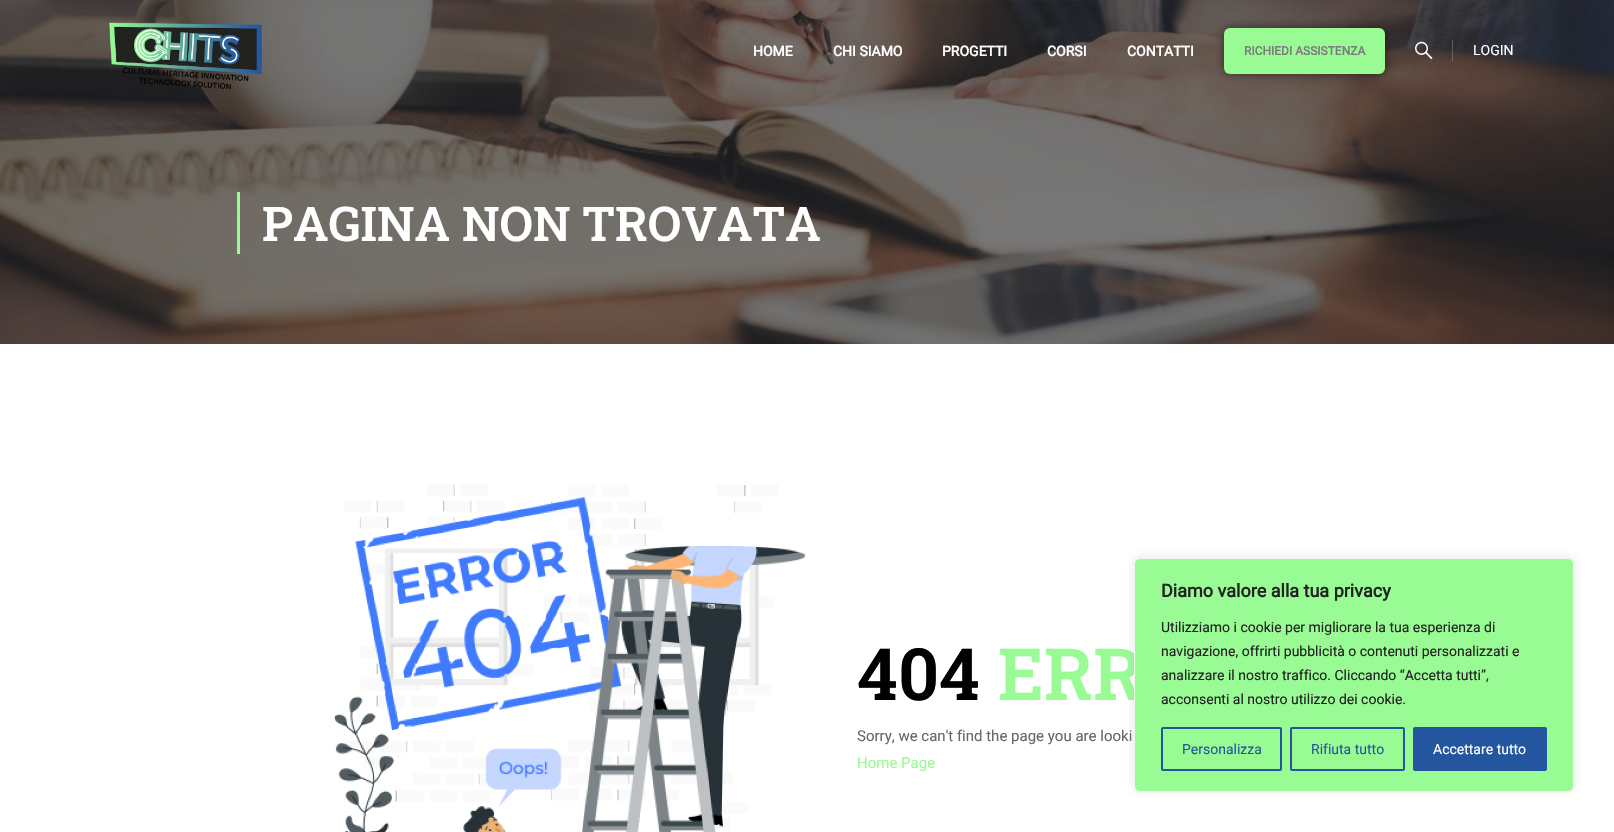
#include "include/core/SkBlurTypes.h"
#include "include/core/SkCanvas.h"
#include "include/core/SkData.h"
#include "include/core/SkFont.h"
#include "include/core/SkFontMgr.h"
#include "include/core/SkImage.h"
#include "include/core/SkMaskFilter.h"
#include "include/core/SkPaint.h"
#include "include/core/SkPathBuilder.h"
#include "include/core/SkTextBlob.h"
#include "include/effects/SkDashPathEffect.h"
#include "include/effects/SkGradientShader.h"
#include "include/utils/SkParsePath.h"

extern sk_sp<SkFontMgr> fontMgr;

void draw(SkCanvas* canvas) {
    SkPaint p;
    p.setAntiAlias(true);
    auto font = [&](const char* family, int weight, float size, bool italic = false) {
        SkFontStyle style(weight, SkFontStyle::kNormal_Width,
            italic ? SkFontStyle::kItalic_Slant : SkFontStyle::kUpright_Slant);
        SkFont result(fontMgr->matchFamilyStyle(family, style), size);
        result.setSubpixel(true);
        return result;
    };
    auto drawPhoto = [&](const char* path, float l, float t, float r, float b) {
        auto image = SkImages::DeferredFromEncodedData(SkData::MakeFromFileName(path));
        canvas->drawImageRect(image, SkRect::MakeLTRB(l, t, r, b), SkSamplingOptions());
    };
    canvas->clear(0xFFFFFFFF);
    drawPhoto("media/3.png", 0, 0, 1614, 344);
    drawPhoto("media/1.png", 109, 22, 262, 90);
    auto font1 = font("Roboto", 700, 14);
    p.setColor(0xFFFFFFFF);
    {
        const struct { const char* s; float x, y; } items[] = {
            {"HOME", 753, 56},
            {"CHI SIAMO", 833, 56},
            {"PROGETTI", 942, 56},
            {"CORSI", 1047, 56},
            {"CONTATTI", 1127, 56},
        };
        for (auto [s, x, y] : items) {
            canvas->drawString(s, x, y, font1, p);
        }
    }
    p.setColor(0x80000000);
    p.setMaskFilter(SkMaskFilter::MakeBlur(kNormal_SkBlurStyle, 5));
    canvas->drawRoundRect(SkRect::MakeLTRB(1224, 28, 1385, 74), 6, 6, p);
    p.setMaskFilter(nullptr);
    p.setColor(0xFF98FB94);
    canvas->drawRoundRect(SkRect::MakeLTRB(1224, 28, 1385, 74), 6, 6, p);
    auto font2 = font("Roboto", 700, 12);
    p.setColor(0xFF7B7B7B);
    canvas->drawString("RICHIEDI ASSISTENZA", 1244, 55, font2, p);
    drawPhoto("media/2.png", 1415, 41, 1433, 60);
    p.setColor(0x40E7E7E7);
    canvas->drawRect(SkRect::MakeLTRB(1452, 40, 1453, 61), p);
    auto font3 = font("Roboto", 400, 14);
    p.setColor(0xFFFFFFFF);
    canvas->drawString("LOGIN", 1473, 55, font3, p);
    p.setColor(0xFF98FB94);
    canvas->drawRect(SkRect::MakeLTRB(237, 192, 240, 254), p);
    auto font4 = font("Roboto Slab", 600, 48);
    p.setColor(0xFFFFFFFF);
    canvas->drawString("PAGINA NON TROVATA", 262, 241, font4, p);
    drawPhoto("media/4.png", 333, 484, 806, 832);
    auto font5 = font("Roboto Slab", 600, 72);
    p.setColor(0xFF000000);
    canvas->drawString("404", 857, 700, font5, p);
    p.setColor(0xFF98FB94);
    canvas->drawString("ERR", 998, 700, font5, p);
    auto font6 = font("Roboto", 400, 15);
    p.setColor(0xFF666666);
    canvas->drawString("Sorry, we can't find the page you are looki", 857, 741, font6, p);
    p.setColor(0xFF98FB94);
    canvas->drawString("Home Page", 857, 768, font6, p);
    p.setColor(0x4DACABAB);
    p.setMaskFilter(SkMaskFilter::MakeBlur(kNormal_SkBlurStyle, 5));
    canvas->drawRoundRect(SkRect::MakeLTRB(1134, 557, 1574, 791), 6, 6, p);
    p.setMaskFilter(nullptr);
    p.setColor(0xFF98FB94);
    canvas->drawRoundRect(SkRect::MakeLTRB(1134.5f, 558.5f, 1573.5f, 791.5f), 5.5f, 5.5f, p);
    p.setStyle(SkPaint::kStroke_Style);
    p.setStrokeWidth(1);
    p.setColor(0xFFF4F4F4);
    canvas->drawRoundRect(SkRect::MakeLTRB(1134.5f, 558.5f, 1573.5f, 791.5f), 5.5f, 5.5f, p);
    auto font7 = font("Roboto", 700, 18);
    p.setStyle(SkPaint::kFill_Style);
    p.setColor(0xFF212121);
    canvas->drawString("Diamo valore alla tua privacy", 1161, 597, font7, p);
    {
        const struct { const char* s; float x, y; } items[] = {
            {"Utilizziamo i cookie per migliorare la tua esperienza di", 1161, 632},
            {"navigazione, offrirti pubblicità o contenuti personalizzati e", 1161, 656},
            {"analizzare il nostro traffico. Cliccando “Accetta tutti”,", 1161, 680},
            {"acconsenti al nostro utilizzo dei cookie.", 1161, 704},
        };
        for (auto [s, x, y] : items) {
            canvas->drawString(s, x, y, font3, p);
        }
    }
    p.setStyle(SkPaint::kStroke_Style);
    p.setStrokeWidth(2);
    p.setColor(0xFF24569F);
    canvas->drawRoundRect(SkRect::MakeLTRB(1162, 728, 1281, 770), 1, 1, p);
    p.setStyle(SkPaint::kFill_Style);
    canvas->drawString("Personalizza", 1182, 754, font3, p);
    p.setStyle(SkPaint::kStroke_Style);
    canvas->drawRoundRect(SkRect::MakeLTRB(1291, 728, 1404, 770), 1, 1, p);
    p.setStyle(SkPaint::kFill_Style);
    canvas->drawString("Rifiuta tutto", 1311, 754, font3, p);
    canvas->drawRoundRect(SkRect::MakeLTRB(1414, 728, 1546, 770), 1, 1, p);
    p.setStyle(SkPaint::kStroke_Style);
    canvas->drawRoundRect(SkRect::MakeLTRB(1414, 728, 1546, 770), 1, 1, p);
    p.setStyle(SkPaint::kFill_Style);
    p.setColor(0xFFFFFFFF);
    canvas->drawString("Accettare tutto", 1433, 754, font3, p);
}
